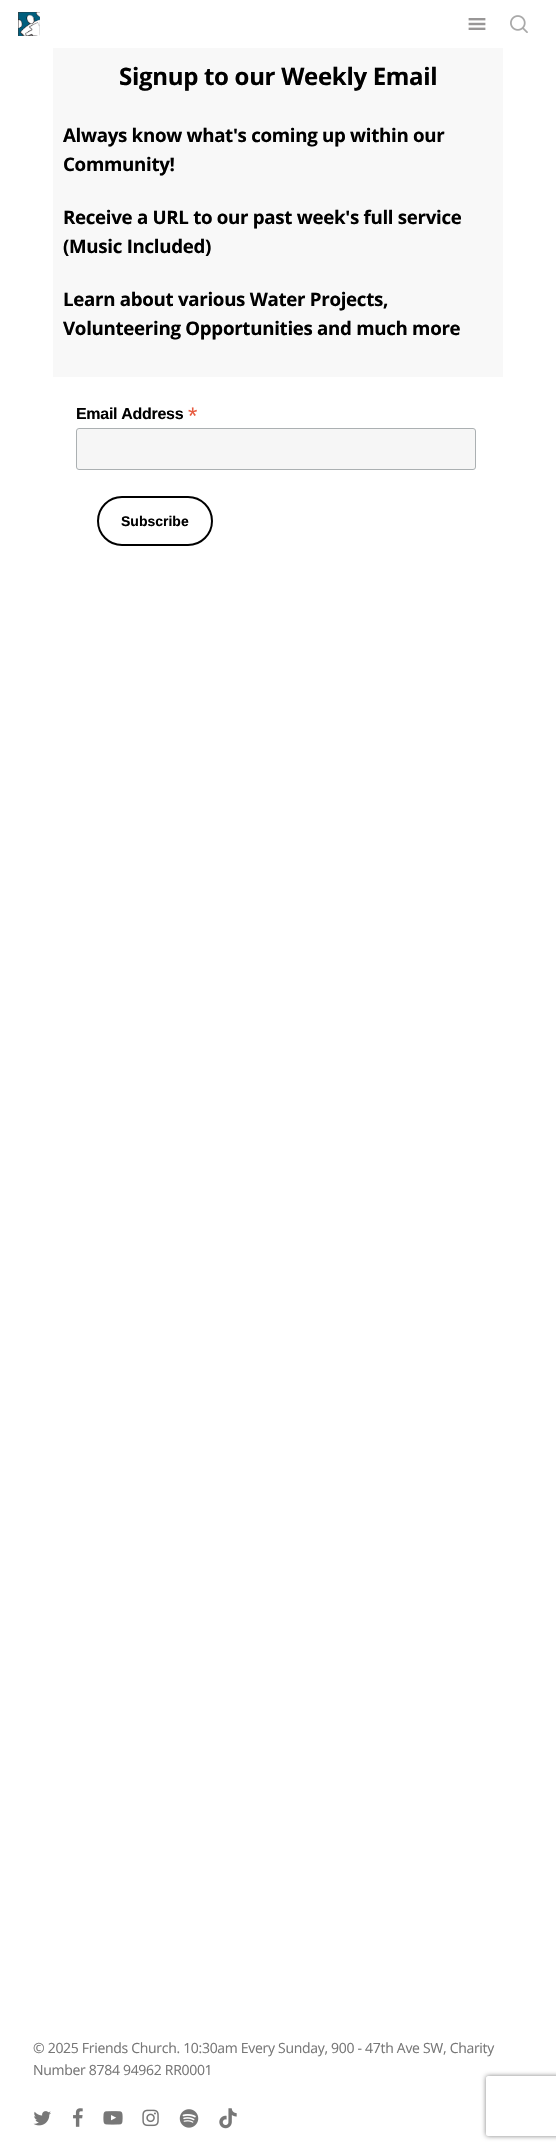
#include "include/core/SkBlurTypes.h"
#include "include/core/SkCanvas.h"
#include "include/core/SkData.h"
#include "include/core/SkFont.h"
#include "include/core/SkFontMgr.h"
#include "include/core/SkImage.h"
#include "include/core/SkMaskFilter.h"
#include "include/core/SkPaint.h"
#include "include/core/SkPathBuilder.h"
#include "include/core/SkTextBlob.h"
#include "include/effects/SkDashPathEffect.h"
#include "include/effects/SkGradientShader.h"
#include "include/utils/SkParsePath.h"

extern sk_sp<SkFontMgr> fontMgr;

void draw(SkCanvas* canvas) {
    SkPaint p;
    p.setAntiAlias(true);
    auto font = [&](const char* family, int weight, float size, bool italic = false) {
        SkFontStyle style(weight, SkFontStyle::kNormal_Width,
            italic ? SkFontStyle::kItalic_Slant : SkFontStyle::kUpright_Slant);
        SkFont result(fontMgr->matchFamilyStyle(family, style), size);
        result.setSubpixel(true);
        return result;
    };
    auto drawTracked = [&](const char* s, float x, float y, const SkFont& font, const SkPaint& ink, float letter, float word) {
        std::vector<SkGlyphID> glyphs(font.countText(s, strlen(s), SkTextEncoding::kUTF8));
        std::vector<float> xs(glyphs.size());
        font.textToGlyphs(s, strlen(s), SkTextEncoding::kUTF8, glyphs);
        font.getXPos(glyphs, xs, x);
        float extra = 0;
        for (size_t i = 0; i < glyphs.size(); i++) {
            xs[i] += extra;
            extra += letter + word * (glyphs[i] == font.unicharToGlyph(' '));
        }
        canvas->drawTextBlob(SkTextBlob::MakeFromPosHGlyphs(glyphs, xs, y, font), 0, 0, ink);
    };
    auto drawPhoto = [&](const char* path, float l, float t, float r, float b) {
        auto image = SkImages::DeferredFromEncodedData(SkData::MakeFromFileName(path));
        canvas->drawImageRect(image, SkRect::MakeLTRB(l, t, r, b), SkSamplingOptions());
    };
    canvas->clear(0xFFFFFFFF);
    drawPhoto("media/1.png", 18, 12, 40, 36);
    drawPhoto("media/2.png", 468, 18, 486, 30);
    drawPhoto("media/3.png", 510, 15, 528, 33);
    p.setColor(0xFFF8F8F8);
    canvas->drawRect(SkRect::MakeLTRB(53, 48, 503, 377), p);
    auto font1 = font("Open Sans", 700, 24);
    p.setColor(0xFF000000);
    drawTracked("Signup to our Weekly Email", 119, 85, font1, p, -0.3f, 0);
    auto font2 = font("Open Sans", 700, 18.7f);
    {
        const struct { const char* s; float x, y; } items[] = {
            {"Always know what's coming up within our", 63, 142},
            {"Community!", 63, 171},
            {"Receive a URL to our past week's full service", 63, 224},
            {"(Music Included)", 63, 253},
            {"Learn about various Water Projects,", 63, 306},
            {"Volunteering Opportunities and much more", 63, 335},
        };
        for (auto [s, x, y] : items) {
            drawTracked(s, x, y, font2, p, -0.3f, 0);
        }
    }
    auto font3 = font("Liberation Sans", 700, 16);
    drawTracked("Email Address", 76, 419, font3, p, -0.3f, 0);
    auto font4 = font("Liberation Sans", 400, 24);
    p.setColor(0xFFE85C41);
    drawTracked("*", 188, 424, font4, p, -0.3f, 0);
    p.setColor(0xFFF6F6F6);
    canvas->drawRoundRect(SkRect::MakeLTRB(76.5f, 428.5f, 475.5f, 469.5f), 2.5f, 2.5f, p);
    p.setStyle(SkPaint::kStroke_Style);
    p.setStrokeWidth(1);
    p.setColor(0xFFABB0B2);
    canvas->drawRoundRect(SkRect::MakeLTRB(76.5f, 428.5f, 475.5f, 469.5f), 2.5f, 2.5f, p);
    p.setStrokeWidth(2);
    p.setColor(0xFF000000);
    canvas->drawRoundRect(SkRect::MakeLTRB(98, 497, 212, 545), 24, 24, p);
    auto font5 = font("Liberation Sans", 700, 14);
    p.setStyle(SkPaint::kFill_Style);
    canvas->drawString("Subscribe", 121, 526, font5, p);
    auto font6 = font("Open Sans", 400, 14);
    p.setColor(0xFF777777);
    drawTracked("© 2025 Friends Church. 10:30am Every Sunday, 900 - 47th Ave SW, Charity", 33, 2053, font6, p, -0.3f, 0);
    drawTracked("Number 8784 94962 RR0001", 33, 2075, font6, p, -0.3f, 0);
    drawPhoto("media/4.png", 33, 2111, 51, 2126);
    drawPhoto("media/5.png", 73, 2108, 83, 2127);
    drawPhoto("media/6.png", 103, 2111, 123, 2125);
    drawPhoto("media/7.png", 142, 2109, 159, 2127);
    drawPhoto("media/8.png", 179, 2109, 199, 2128);
    drawPhoto("media/9.png", 219, 2108, 237, 2129);
    canvas->save();
    canvas->clipPath(SkPathBuilder(SkPathFillType::kEvenOdd).moveTo(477, 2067).lineTo(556, 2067).lineTo(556, 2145).lineTo(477, 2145).close().moveTo(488, 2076).lineTo(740, 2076).cubicTo(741, 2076, 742, 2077, 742, 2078).lineTo(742, 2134).cubicTo(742, 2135, 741, 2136, 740, 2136).lineTo(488, 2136).cubicTo(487, 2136, 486, 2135, 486, 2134).lineTo(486, 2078).cubicTo(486, 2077, 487, 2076, 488, 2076).close().detach(), true);
    p.setColor(0xFF808080);
    p.setMaskFilter(SkMaskFilter::MakeBlur(kNormal_SkBlurStyle, 2.5f));
    canvas->drawRoundRect(SkRect::MakeLTRB(486, 2076, 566, 2136), 2, 2, p);
    p.setMaskFilter(nullptr);
    canvas->restore();
}
